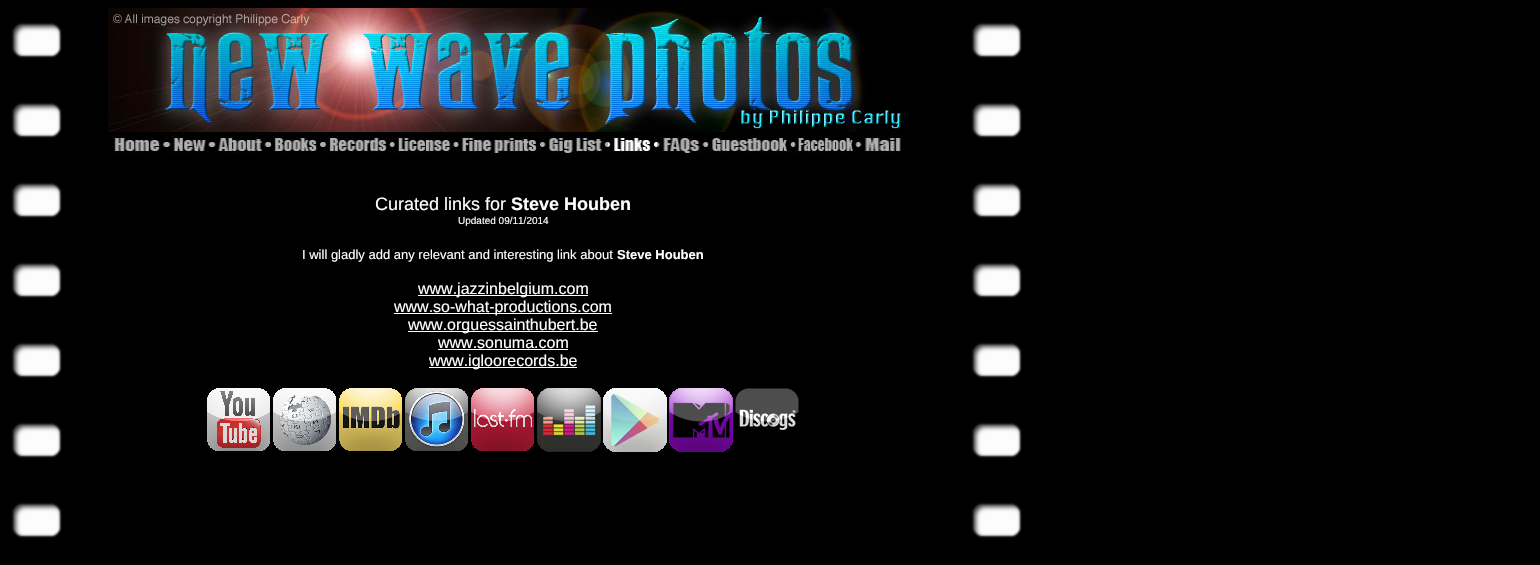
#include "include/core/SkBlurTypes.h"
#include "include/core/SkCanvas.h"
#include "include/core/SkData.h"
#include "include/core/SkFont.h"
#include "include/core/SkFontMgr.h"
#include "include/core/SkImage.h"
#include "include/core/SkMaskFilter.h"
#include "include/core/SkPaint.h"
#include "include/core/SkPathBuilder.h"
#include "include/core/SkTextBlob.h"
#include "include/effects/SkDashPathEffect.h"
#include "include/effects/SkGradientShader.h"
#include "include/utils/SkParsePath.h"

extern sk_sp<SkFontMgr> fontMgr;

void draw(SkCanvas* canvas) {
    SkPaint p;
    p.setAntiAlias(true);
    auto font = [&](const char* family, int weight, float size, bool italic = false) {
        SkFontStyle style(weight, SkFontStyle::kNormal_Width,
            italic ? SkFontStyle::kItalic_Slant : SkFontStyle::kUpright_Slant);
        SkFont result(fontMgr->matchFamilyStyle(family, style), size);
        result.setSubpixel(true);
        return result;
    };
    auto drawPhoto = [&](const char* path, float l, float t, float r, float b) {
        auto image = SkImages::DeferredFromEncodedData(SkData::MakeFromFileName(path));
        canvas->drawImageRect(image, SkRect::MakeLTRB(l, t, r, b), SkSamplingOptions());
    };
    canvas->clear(0xFFFFFFFF);
    drawPhoto("media/1.png", 0, 0, 1540, 565);
    drawPhoto("media/2.png", 108, 8, 901, 132);
    drawPhoto("media/3.png", 112, 134, 167, 156);
    drawPhoto("media/4.png", 167, 134, 212, 155);
    drawPhoto("media/5.png", 212, 133, 268, 155);
    drawPhoto("media/6.png", 268, 135, 323, 155);
    drawPhoto("media/7.png", 323, 133, 392, 156);
    drawPhoto("media/8.png", 392, 132, 456, 156);
    drawPhoto("media/9.png", 456, 134, 542, 156);
    drawPhoto("media/10.png", 542, 133, 608, 155);
    drawPhoto("media/11.png", 608, 134, 657, 156);
    drawPhoto("media/12.png", 657, 132, 705, 156);
    drawPhoto("media/13.png", 705, 132, 793, 156);
    drawPhoto("media/14.png", 793, 134, 858, 156);
    drawPhoto("media/15.png", 858, 135, 902, 156);
    auto font1 = font("Liberation Sans", 400, 18);
    p.setColor(0xFFFFFFFF);
    canvas->drawString("Curated links for", 375, 210, font1, p);
    auto font2 = font("Liberation Sans", 700, 18);
    canvas->drawString("Steve Houben", 511, 210, font2, p);
    auto font3 = font("Liberation Sans", 400, 10);
    canvas->drawString("Updated 09/11/2014", 458, 224, font3, p);
    auto font4 = font("Liberation Sans", 400, 13);
    canvas->drawString("I will gladly add any relevant and interesting link about", 302, 259, font4, p);
    auto font5 = font("Liberation Sans", 700, 13);
    canvas->drawString("Steve Houben", 617, 259, font5, p);
    canvas->drawRect(SkRect::MakeLTRB(418, 295, 588, 296), p);
    auto font6 = font("Liberation Sans", 400, 16);
    canvas->drawString("www.jazzinbelgium.com", 418, 294, font6, p);
    canvas->drawRect(SkRect::MakeLTRB(394, 313, 612, 314), p);
    canvas->drawString("www.so-what-productions.com", 394, 312, font6, p);
    canvas->drawRect(SkRect::MakeLTRB(408, 331, 598, 332), p);
    canvas->drawString("www.orguessainthubert.be", 408, 330, font6, p);
    canvas->drawString("www.sonuma.com", 438, 348, font6, p);
    canvas->drawRect(SkRect::MakeLTRB(438, 349, 568, 350), p);
    canvas->drawRect(SkRect::MakeLTRB(429, 367, 577, 368), p);
    canvas->drawString("www.igloorecords.be", 429, 366, font6, p);
    drawPhoto("media/16.png", 207, 388, 270, 451);
    drawPhoto("media/17.png", 273, 388, 336, 451);
    drawPhoto("media/18.png", 339, 388, 402, 451);
    drawPhoto("media/19.png", 405, 388, 468, 451);
    drawPhoto("media/20.png", 471, 388, 534, 451);
    drawPhoto("media/21.png", 537, 388, 601, 452);
    drawPhoto("media/22.png", 603, 388, 667, 452);
    drawPhoto("media/23.png", 669, 388, 733, 452);
    drawPhoto("media/24.png", 735, 388, 799, 430);
}
